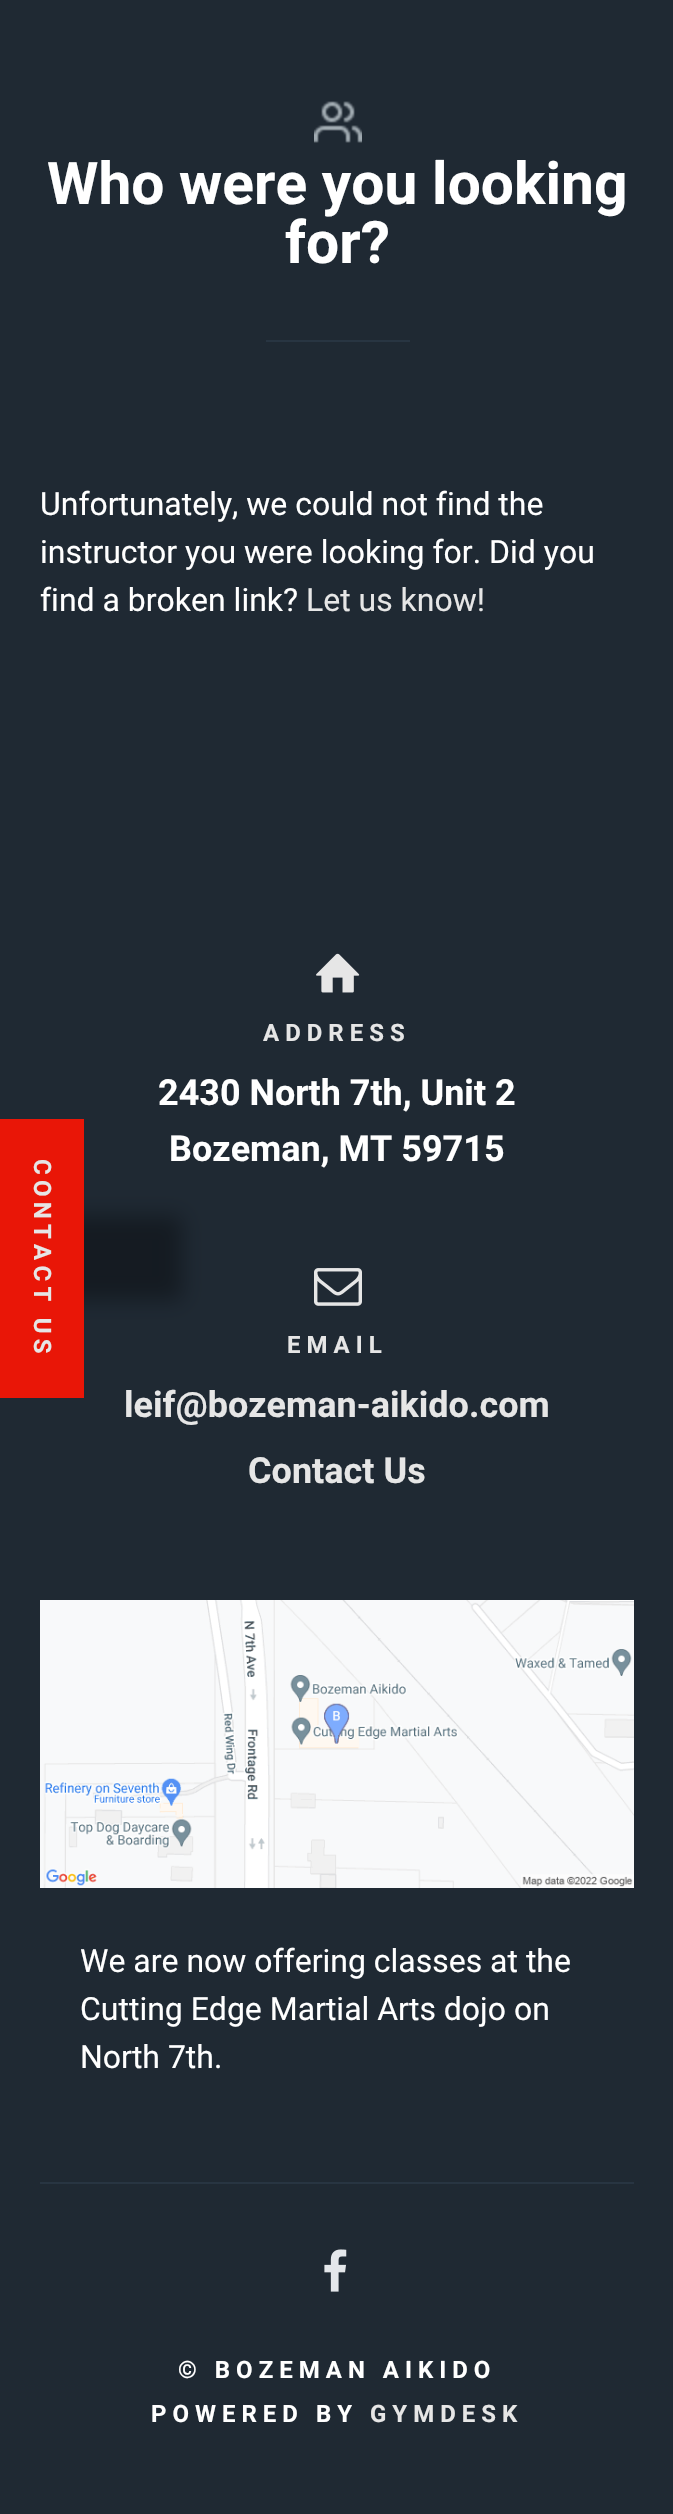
#include "include/core/SkBlurTypes.h"
#include "include/core/SkCanvas.h"
#include "include/core/SkData.h"
#include "include/core/SkFont.h"
#include "include/core/SkFontMgr.h"
#include "include/core/SkImage.h"
#include "include/core/SkMaskFilter.h"
#include "include/core/SkPaint.h"
#include "include/core/SkPathBuilder.h"
#include "include/core/SkTextBlob.h"
#include "include/effects/SkDashPathEffect.h"
#include "include/effects/SkGradientShader.h"
#include "include/utils/SkParsePath.h"

extern sk_sp<SkFontMgr> fontMgr;

void draw(SkCanvas* canvas) {
    SkPaint p;
    p.setAntiAlias(true);
    auto font = [&](const char* family, int weight, float size, bool italic = false) {
        SkFontStyle style(weight, SkFontStyle::kNormal_Width,
            italic ? SkFontStyle::kItalic_Slant : SkFontStyle::kUpright_Slant);
        SkFont result(fontMgr->matchFamilyStyle(family, style), size);
        result.setSubpixel(true);
        return result;
    };
    auto drawTracked = [&](const char* s, float x, float y, const SkFont& font, const SkPaint& ink, float letter, float word) {
        std::vector<SkGlyphID> glyphs(font.countText(s, strlen(s), SkTextEncoding::kUTF8));
        std::vector<float> xs(glyphs.size());
        font.textToGlyphs(s, strlen(s), SkTextEncoding::kUTF8, glyphs);
        font.getXPos(glyphs, xs, x);
        float extra = 0;
        for (size_t i = 0; i < glyphs.size(); i++) {
            xs[i] += extra;
            extra += letter + word * (glyphs[i] == font.unicharToGlyph(' '));
        }
        canvas->drawTextBlob(SkTextBlob::MakeFromPosHGlyphs(glyphs, xs, y, font), 0, 0, ink);
    };
    auto drawPhoto = [&](const char* path, float l, float t, float r, float b) {
        auto image = SkImages::DeferredFromEncodedData(SkData::MakeFromFileName(path));
        canvas->drawImageRect(image, SkRect::MakeLTRB(l, t, r, b), SkSamplingOptions());
    };
    canvas->clear(0xFF1F2933);
    drawPhoto("media/1.png", 314, 101, 362, 143);
    auto font1 = font("Roboto", 700, 58.75f);
    p.setColor(0xFFFFFFFF);
    canvas->drawString("Who were you looking", 47, 204, font1, p);
    canvas->drawString("for?", 285, 263, font1, p);
    p.setColor(0xFF283542);
    canvas->drawRect(SkRect::MakeLTRB(266, 340, 410, 342), p);
    auto font2 = font("Roboto", 400, 32);
    p.setColor(0xFFFFFFFF);
    {
        const struct { const char* s; float x, y; } items[] = {
            {"Unfortunately, we could not find the", 40, 515},
            {"instructor you were looking for. Did you", 40, 563},
            {"find a broken link?", 40, 611},
        };
        for (auto [s, x, y] : items) {
            canvas->drawString(s, x, y, font2, p);
        }
    }
    p.setColor(0xFFE6E6E6);
    canvas->drawString("Let us know!", 306, 611, font2, p);
    p.setColor(0x57000000);
    p.setMaskFilter(SkMaskFilter::MakeBlur(kNormal_SkBlurStyle, 10));
    canvas->drawRect(SkRect::MakeLTRB(-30, 1216, 182, 1300), p);
    p.setMaskFilter(nullptr);
    p.setColor(0xFFE91607);
    canvas->drawRect(SkRect::MakeLTRB(0, 1119, 84, 1398), p);
    auto font3 = font("Roboto", 700, 24);
    p.setColor(0xFFE6E6E6);
    canvas->save();
    canvas->rotate(90, 34, 1159);
    drawTracked("CONTACT US", 34, 1159, font3, p, 5.25f, 0);
    canvas->restore();
    drawPhoto("media/2.png", 316, 953, 360, 993);
    drawTracked("ADDRESS", 263, 1041, font3, p, 6, 0);
    auto font4 = font("Roboto", 700, 36);
    p.setColor(0xFFFFFFFF);
    canvas->drawString("2430 North 7th, Unit 2", 158, 1105, font4, p);
    canvas->drawString("Bozeman, MT 59715", 169, 1161, font4, p);
    drawPhoto("media/3.png", 314, 1268, 362, 1306);
    p.setColor(0xFFE6E6E6);
    drawTracked("EMAIL", 287, 1353, font3, p, 6, 0);
    canvas->drawString("leif@bozeman-aikido.com", 124, 1417, font4, p);
    canvas->drawString("Contact Us", 248, 1483, font4, p);
    drawPhoto("media/4.png", 40, 1600, 634, 1888);
    p.setColor(0xFFFFFFFF);
    {
        const struct { const char* s; float x, y; } items[] = {
            {"We are now offering classes at the", 80, 1972},
            {"Cutting Edge Martial Arts dojo on", 80, 2020},
            {"North 7th.", 80, 2068},
        };
        for (auto [s, x, y] : items) {
            canvas->drawString(s, x, y, font2, p);
        }
    }
    p.setColor(0xFF283542);
    canvas->drawRect(SkRect::MakeLTRB(40, 2182, 634, 2184), p);
    drawPhoto("media/5.png", 324, 2249, 347, 2292);
    p.setColor(0xFFFFFFFF);
    drawTracked("© BOZEMAN AIKIDO", 178, 2378, font3, p, 6, 0);
    drawTracked("POWERED BY", 151, 2422, font3, p, 6, 0);
    p.setColor(0xFFE6E6E6);
    drawTracked("GYMDESK", 370, 2422, font3, p, 6, 0);
}
